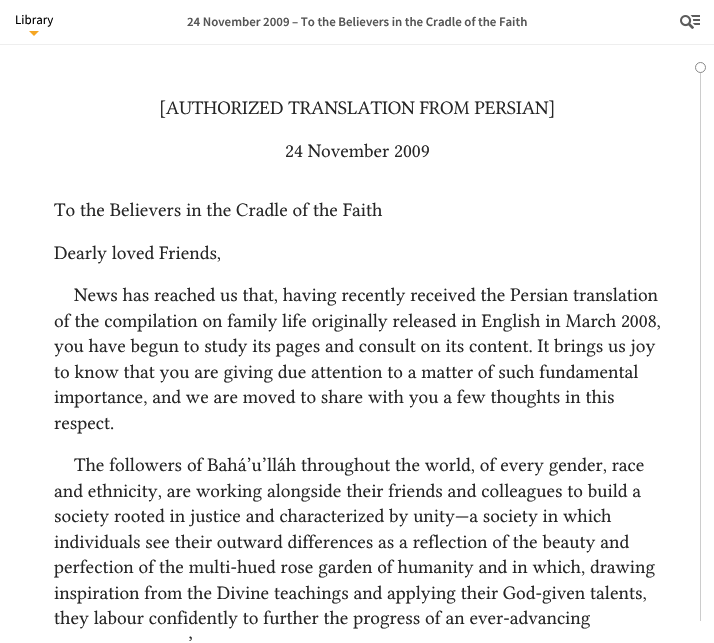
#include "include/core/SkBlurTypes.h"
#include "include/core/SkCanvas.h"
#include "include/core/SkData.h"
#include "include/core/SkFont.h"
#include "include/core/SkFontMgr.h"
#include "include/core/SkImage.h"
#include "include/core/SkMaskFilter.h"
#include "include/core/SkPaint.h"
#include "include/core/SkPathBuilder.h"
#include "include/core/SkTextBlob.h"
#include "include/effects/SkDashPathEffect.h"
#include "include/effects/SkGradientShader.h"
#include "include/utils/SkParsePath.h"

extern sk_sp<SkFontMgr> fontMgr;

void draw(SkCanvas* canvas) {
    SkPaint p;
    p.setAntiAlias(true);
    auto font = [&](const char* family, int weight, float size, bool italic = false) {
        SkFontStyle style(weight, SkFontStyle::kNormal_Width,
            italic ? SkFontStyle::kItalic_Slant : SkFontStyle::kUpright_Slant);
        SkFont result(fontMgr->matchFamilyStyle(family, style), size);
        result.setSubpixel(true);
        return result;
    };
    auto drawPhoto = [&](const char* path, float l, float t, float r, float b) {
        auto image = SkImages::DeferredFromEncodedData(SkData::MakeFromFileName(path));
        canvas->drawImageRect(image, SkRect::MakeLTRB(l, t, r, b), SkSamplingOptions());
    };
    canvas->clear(0xFFFFFFFF);
    p.setColor(0xFFEEEEEE);
    canvas->drawRect(SkRect::MakeLTRB(0, 44, 714, 45), p);
    auto font1 = font("Source Sans Pro", 400, 13);
    p.setColor(0xFF000000);
    canvas->drawString("Library", 15, 24, font1, p);
    p.setColor(0xFFF5A623);
    canvas->drawPath(SkPathBuilder().moveTo(29, 31).lineTo(39, 31).lineTo(34, 36).close().detach(), p);
    auto font2 = font("Source Sans Pro", 600, 13);
    p.setColor(0xFF565656);
    canvas->drawString("24 November 2009 – To the Believers in the Cradle of the Faith", 187, 26, font2, p);
    drawPhoto("media/1.png", 680, 15, 700, 29);
    auto font3 = font("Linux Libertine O", 400, 17);
    p.setColor(0xFF262626);
    {
        const struct { const char* s; float x, y; } items[] = {
            {"[AUTHORIZED TRANSLATION FROM PERSIAN]", 159, 114},
            {"24 November 2009", 285, 157},
            {"To the Believers in the Cradle of the Faith", 54, 216},
            {"Dearly loved Friends,", 54, 259},
            {"News has reached us that, having recently received the Persian translation", 74, 301},
            {"of the compilation on family life originally released in English in March 2008,", 54, 327},
            {"you have begun to study its pages and consult on its content. It brings us joy", 54, 352},
            {"to know that you are giving due attention to a matter of such fundamental", 54, 378},
            {"importance, and we are moved to share with you a few thoughts in this", 54, 403},
            {"respect.", 54, 429},
            {"The followers of Bahá’u’lláh throughout the world, of every gender, race", 74, 471},
            {"and ethnicity, are working alongside their friends and colleagues to build a", 54, 497},
            {"society rooted in justice and characterized by unity—a society in which", 54, 522},
            {"individuals see their outward differences as a reflection of the beauty and", 54, 548},
            {"perfection of the multi-hued rose garden of humanity and in which, drawing", 54, 573},
            {"inspiration from the Divine teachings and applying their God-given talents,", 54, 599},
            {"they labour confidently to further the progress of an ever-advancing", 54, 624},
            {"’", 188, 650},
        };
        for (auto [s, x, y] : items) {
            canvas->drawString(s, x, y, font3, p);
        }
    }
    p.setColor(0xFFCCCCCC);
    canvas->drawRect(SkRect::MakeLTRB(700, 67, 701, 621), p);
    p.setColor(0xFFFFFFFF);
    canvas->drawCircle(700.5f, 67.5f, 5, p);
    p.setStyle(SkPaint::kStroke_Style);
    p.setStrokeWidth(1);
    p.setColor(0xFF888888);
    canvas->drawCircle(700.5f, 67.5f, 5, p);
}
